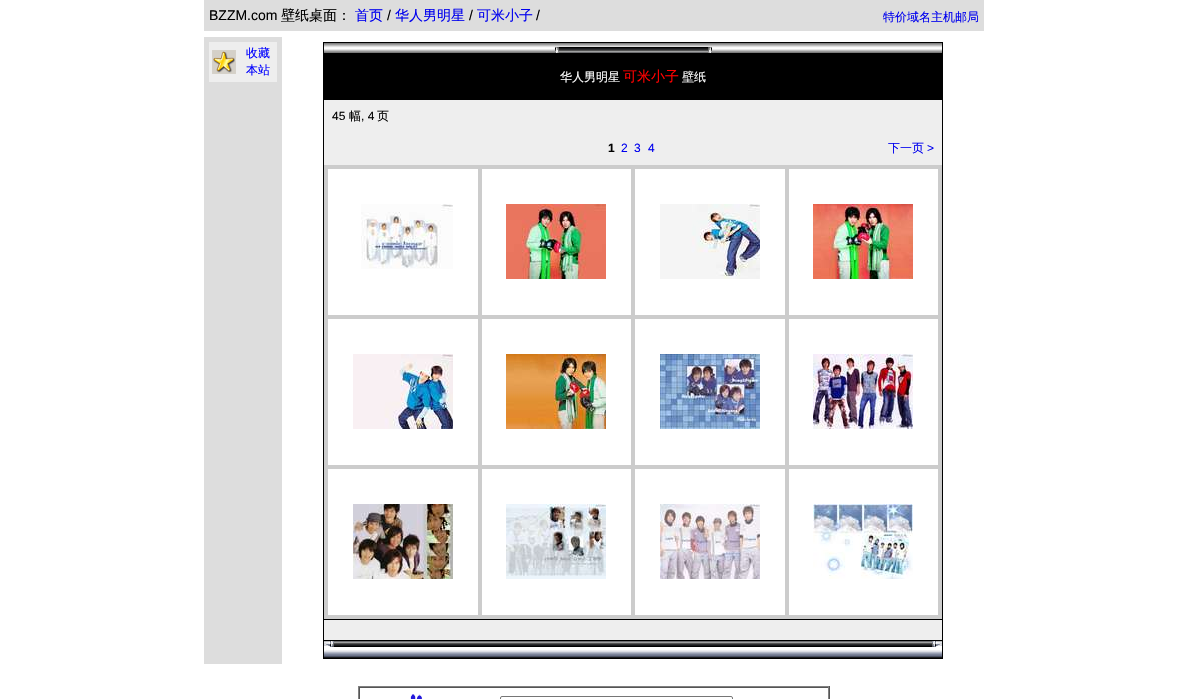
#include "include/core/SkBlurTypes.h"
#include "include/core/SkCanvas.h"
#include "include/core/SkData.h"
#include "include/core/SkFont.h"
#include "include/core/SkFontMgr.h"
#include "include/core/SkImage.h"
#include "include/core/SkMaskFilter.h"
#include "include/core/SkPaint.h"
#include "include/core/SkPathBuilder.h"
#include "include/core/SkTextBlob.h"
#include "include/effects/SkDashPathEffect.h"
#include "include/effects/SkGradientShader.h"
#include "include/utils/SkParsePath.h"

extern sk_sp<SkFontMgr> fontMgr;

void draw(SkCanvas* canvas) {
    SkPaint p;
    p.setAntiAlias(true);
    auto font = [&](const char* family, int weight, float size, bool italic = false) {
        SkFontStyle style(weight, SkFontStyle::kNormal_Width,
            italic ? SkFontStyle::kItalic_Slant : SkFontStyle::kUpright_Slant);
        SkFont result(fontMgr->matchFamilyStyle(family, style), size);
        result.setSubpixel(true);
        return result;
    };
    auto drawPhoto = [&](const char* path, float l, float t, float r, float b) {
        auto image = SkImages::DeferredFromEncodedData(SkData::MakeFromFileName(path));
        canvas->drawImageRect(image, SkRect::MakeLTRB(l, t, r, b), SkSamplingOptions());
    };
    canvas->clear(0xFFFFFFFF);
    p.setColor(0xFFDDDDDD);
    canvas->drawRect(SkRect::MakeLTRB(204, 0, 984, 31), p);
    auto font1 = font("Liberation Sans", 400, 14);
    p.setColor(0xFF000000);
    canvas->drawString("BZZM.com", 209, 20, font1, p);
    auto font2 = font("WenQuanYi Zen Hei", 500, 14);
    canvas->drawString("壁纸桌面：", 281, 20, font2, p);
    p.setColor(0xFF0000EE);
    canvas->drawString("首页", 355, 20, font2, p);
    p.setColor(0xFF000000);
    canvas->drawString("/", 387, 20, font1, p);
    p.setColor(0xFF0000EE);
    canvas->drawString("华人男明星", 395, 20, font2, p);
    p.setColor(0xFF000000);
    canvas->drawString("/", 469, 20, font1, p);
    p.setColor(0xFF0000EE);
    canvas->drawString("可米小子", 477, 20, font2, p);
    p.setColor(0xFF000000);
    canvas->drawString("/", 536, 20, font1, p);
    auto font3 = font("WenQuanYi Zen Hei", 500, 12);
    p.setColor(0xFF0000EE);
    canvas->drawString("特价域名主机邮局", 883, 21, font3, p);
    p.setColor(0xFFDDDDDD);
    canvas->drawRect(SkRect::MakeLTRB(204, 37, 282, 664), p);
    p.setColor(0xFFEEEEEE);
    canvas->drawRect(SkRect::MakeLTRB(209, 42, 277, 82), p);
    drawPhoto("media/1.png", 212, 50, 236, 74);
    p.setColor(0xFF0000FF);
    canvas->drawString("收藏", 246, 57, font3, p);
    canvas->drawString("本站", 246, 74, font3, p);
    p.setColor(0xFF000000);
    canvas->drawRect(SkRect::MakeLTRB(323, 42, 943, 659), p);
    drawPhoto("media/2.png", 324, 43, 942, 53);
    drawPhoto("media/3.png", 555, 47, 712, 53);
    p.setColor(0xFFFFFFFF);
    canvas->drawString("华人男明星", 560, 81, font3, p);
    p.setColor(0xFFFF0000);
    canvas->drawString("可米小子", 623, 81, font2, p);
    p.setColor(0xFFFFFFFF);
    canvas->drawString("壁纸", 682, 81, font3, p);
    p.setColor(0xFFEEEEEE);
    canvas->drawRect(SkRect::MakeLTRB(324, 100, 942, 165), p);
    auto font4 = font("Liberation Sans", 400, 12);
    p.setColor(0xFF000000);
    canvas->drawString("45", 332, 120, font4, p);
    canvas->drawString("幅", 349, 120, font3, p);
    canvas->drawString(", 4", 361, 120, font4, p);
    canvas->drawString("页", 377, 120, font3, p);
    auto font5 = font("Liberation Sans", 700, 12);
    canvas->drawString("1", 608, 152, font5, p);
    p.setColor(0xFF0000EE);
    {
        const struct { const char* s; float x, y; } items[] = {
            {"2", 621, 152},
            {"3", 634, 152},
            {"4", 648, 152},
        };
        for (auto [s, x, y] : items) {
            canvas->drawString(s, x, y, font4, p);
        }
    }
    canvas->drawString("下一页", 888, 152, font3, p);
    canvas->drawString(">", 927, 152, font4, p);
    p.setColor(0xFFCCCCCC);
    canvas->drawRect(SkRect::MakeLTRB(324, 165, 942, 619), p);
    p.setColor(0xFFFFFFFF);
    canvas->drawRect(SkRect::MakeLTRB(328, 169, 478, 315), p);
    drawPhoto("media/4.png", 361, 204, 453, 269);
    canvas->drawRect(SkRect::MakeLTRB(482, 169, 631, 315), p);
    drawPhoto("media/5.png", 506, 204, 606, 279);
    canvas->drawRect(SkRect::MakeLTRB(635, 169, 785, 315), p);
    drawPhoto("media/6.png", 660, 204, 760, 279);
    canvas->drawRect(SkRect::MakeLTRB(789, 169, 938, 315), p);
    drawPhoto("media/7.png", 813, 204, 913, 279);
    canvas->drawRect(SkRect::MakeLTRB(328, 319, 478, 465), p);
    drawPhoto("media/8.png", 353, 354, 453, 429);
    canvas->drawRect(SkRect::MakeLTRB(482, 319, 631, 465), p);
    drawPhoto("media/9.png", 506, 354, 606, 429);
    canvas->drawRect(SkRect::MakeLTRB(635, 319, 785, 465), p);
    drawPhoto("media/10.png", 660, 354, 760, 429);
    canvas->drawRect(SkRect::MakeLTRB(789, 319, 938, 465), p);
    drawPhoto("media/11.png", 813, 354, 913, 429);
    canvas->drawRect(SkRect::MakeLTRB(328, 469, 478, 615), p);
    drawPhoto("media/12.png", 353, 504, 453, 579);
    canvas->drawRect(SkRect::MakeLTRB(482, 469, 631, 615), p);
    drawPhoto("media/13.png", 506, 504, 606, 579);
    canvas->drawRect(SkRect::MakeLTRB(635, 469, 785, 615), p);
    drawPhoto("media/14.png", 660, 504, 760, 579);
    canvas->drawRect(SkRect::MakeLTRB(789, 469, 938, 615), p);
    drawPhoto("media/15.png", 813, 504, 913, 579);
    p.setColor(0xFFEEEEEE);
    canvas->drawRect(SkRect::MakeLTRB(324, 620, 942, 640), p);
    drawPhoto("media/16.png", 324, 641, 942, 658);
    drawPhoto("media/17.png", 324, 641, 334, 651);
    drawPhoto("media/18.png", 932, 641, 942, 651);
    {
        const struct { float l, t, r, b; SkColor color; } items[] = {
            {358, 686, 830, 687, 0xFF808080},
            {829, 686, 830, 699, 0xFF555555},
            {358, 686, 359, 699, 0xFF808080},
            {359, 687, 829, 688, 0xFF555555},
            {828, 687, 829, 699, 0xFF808080},
            {359, 687, 360, 699, 0xFF555555},
        };
        for (auto [l, t, r, b, color] : items) {
            p.setColor(color);
            canvas->drawRect(SkRect::MakeLTRB(l, t, r, b), p);
        }
    }
    drawPhoto("media/19.png", 410, 694, 423, 699);
    p.setStyle(SkPaint::kStroke_Style);
    p.setStrokeWidth(1);
    p.setColor(0xFF767676);
    canvas->drawRoundRect(SkRect::MakeLTRB(500.5f, 696.5f, 732.5f, 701.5f), 1.5f, 1.5f, p);
}
